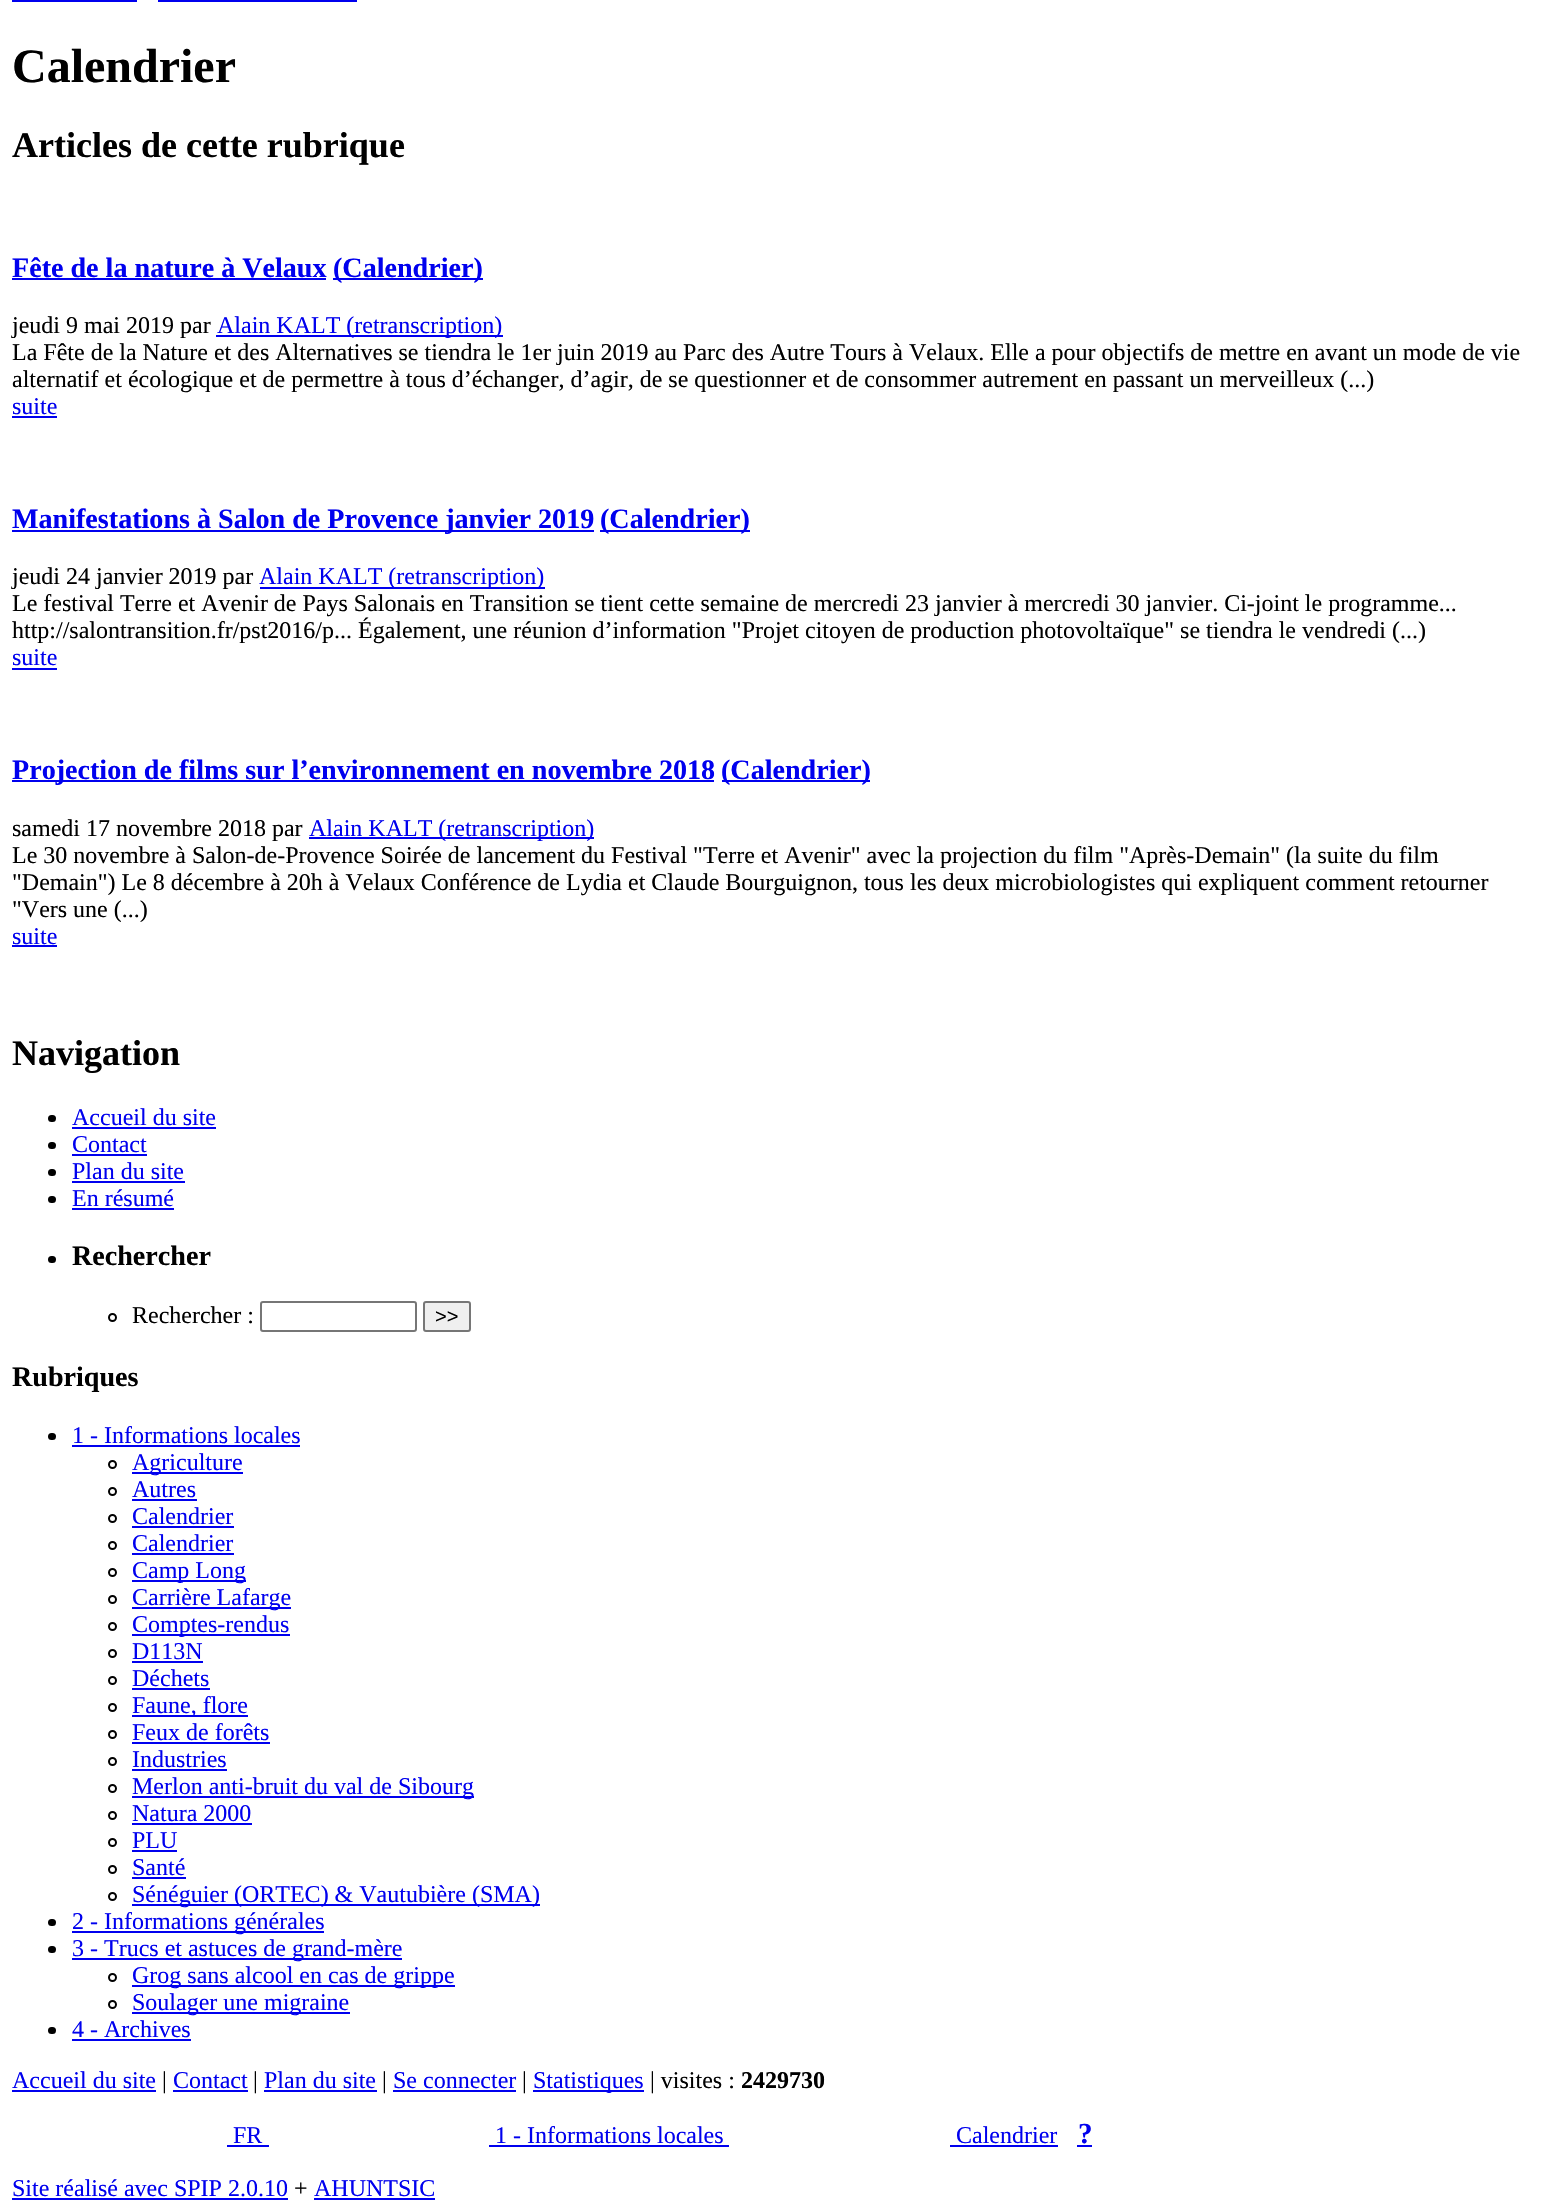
#include "include/core/SkBlurTypes.h"
#include "include/core/SkCanvas.h"
#include "include/core/SkData.h"
#include "include/core/SkFont.h"
#include "include/core/SkFontMgr.h"
#include "include/core/SkImage.h"
#include "include/core/SkMaskFilter.h"
#include "include/core/SkPaint.h"
#include "include/core/SkPathBuilder.h"
#include "include/core/SkTextBlob.h"
#include "include/effects/SkDashPathEffect.h"
#include "include/effects/SkGradientShader.h"
#include "include/utils/SkParsePath.h"

extern sk_sp<SkFontMgr> fontMgr;

void draw(SkCanvas* canvas) {
    SkPaint p;
    p.setAntiAlias(true);
    auto font = [&](const char* family, int weight, float size, bool italic = false) {
        SkFontStyle style(weight, SkFontStyle::kNormal_Width,
            italic ? SkFontStyle::kItalic_Slant : SkFontStyle::kUpright_Slant);
        SkFont result(fontMgr->matchFamilyStyle(family, style), size);
        result.setSubpixel(true);
        return result;
    };
    canvas->clear(0xFFFFFFFF);
    p.setColor(0xFF0000EE);
    canvas->drawRect(SkRect::MakeLTRB(12, 0, 137, 2), p);
    canvas->drawRect(SkRect::MakeLTRB(158, 0, 357, 2), p);
    auto font1 = font("Liberation Serif", 700, 48);
    p.setColor(0xFF000000);
    canvas->drawString("Calendrier", 12, 82, font1, p);
    auto font2 = font("Liberation Serif", 700, 36);
    canvas->drawString("Articles de cette rubrique", 12, 157, font2, p);
    auto font3 = font("Liberation Serif", 700, 28.1f);
    p.setColor(0xFF0000EE);
    canvas->drawString("Fête de la nature à Velaux", 12, 277, font3, p);
    canvas->drawRect(SkRect::MakeLTRB(12, 278, 326, 280), p);
    canvas->drawRect(SkRect::MakeLTRB(333, 278, 483, 280), p);
    canvas->drawString("(Calendrier)", 333, 277, font3, p);
    auto font4 = font("Liberation Serif", 400, 24);
    p.setColor(0xFF000000);
    canvas->drawString("jeudi 9 mai 2019 par", 12, 333, font4, p);
    p.setColor(0xFF0000EE);
    canvas->drawRect(SkRect::MakeLTRB(216, 335, 503, 337), p);
    canvas->drawString("Alain KALT (retranscription)", 217, 333, font4, p);
    p.setColor(0xFF000000);
    canvas->drawString("La Fête de la Nature et des Alternatives se tiendra le 1er juin 2019 au Parc des Autre Tours à Velaux. Elle a pour objectifs de mettre en avant un mode de vie", 12, 360, font4, p);
    canvas->drawString("alternatif et écologique et de permettre à tous d’échanger, d’agir, de se questionner et de consommer autrement en passant un merveilleux (...)", 12, 387, font4, p);
    p.setColor(0xFF0000EE);
    canvas->drawString("suite", 12, 414, font4, p);
    canvas->drawRect(SkRect::MakeLTRB(12, 416, 57, 418), p);
    canvas->drawRect(SkRect::MakeLTRB(12, 530, 594, 532), p);
    canvas->drawString("Manifestations à Salon de Provence janvier 2019", 12, 528, font3, p);
    canvas->drawRect(SkRect::MakeLTRB(600, 530, 750, 532), p);
    canvas->drawString("(Calendrier)", 600, 528, font3, p);
    p.setColor(0xFF000000);
    canvas->drawString("jeudi 24 janvier 2019 par", 12, 584, font4, p);
    p.setColor(0xFF0000EE);
    canvas->drawRect(SkRect::MakeLTRB(260, 587, 545, 589), p);
    canvas->drawString("Alain KALT (retranscription)", 259, 584, font4, p);
    p.setColor(0xFF000000);
    canvas->drawString("Le festival Terre et Avenir de Pays Salonais en Transition se tient cette semaine de mercredi 23 janvier à mercredi 30 janvier. Ci-joint le programme...", 12, 611, font4, p);
    canvas->drawString("http://salontransition.fr/pst2016/p... Également, une réunion d’information \"Projet citoyen de production photovoltaïque\" se tiendra le vendredi (...)", 12, 638, font4, p);
    p.setColor(0xFF0000EE);
    canvas->drawString("suite", 12, 665, font4, p);
    canvas->drawRect(SkRect::MakeLTRB(12, 668, 57, 670), p);
    canvas->drawRect(SkRect::MakeLTRB(12, 780, 714, 782), p);
    canvas->drawString("Projection de films sur l’environnement en novembre 2018", 12, 779, font3, p);
    canvas->drawRect(SkRect::MakeLTRB(722, 780, 870, 782), p);
    canvas->drawString("(Calendrier)", 721, 779, font3, p);
    p.setColor(0xFF000000);
    canvas->drawString("samedi 17 novembre 2018 par", 12, 836, font4, p);
    p.setColor(0xFF0000EE);
    canvas->drawRect(SkRect::MakeLTRB(309, 837, 594, 839), p);
    canvas->drawString("Alain KALT (retranscription)", 309, 836, font4, p);
    p.setColor(0xFF000000);
    {
        const struct { const char* s; float x, y; } items[] = {
            {"Le 30 novembre à Salon-de-Provence Soirée de lancement du Festival \"Terre et Avenir\" avec la projection du film \"Après-Demain\" (la suite du film", 12, 863},
            {"\"Demain\") Le 8 décembre à 20h à Velaux Conférence de Lydia et Claude Bourguignon, tous les deux microbiologistes qui expliquent comment retourner", 12, 890},
            {"\"Vers une (...)", 12, 917},
        };
        for (auto [s, x, y] : items) {
            canvas->drawString(s, x, y, font4, p);
        }
    }
    p.setColor(0xFF0000EE);
    canvas->drawString("suite", 12, 944, font4, p);
    canvas->drawRect(SkRect::MakeLTRB(12, 945, 57, 947), p);
    p.setColor(0xFF000000);
    canvas->drawString("Navigation", 12, 1065, font2, p);
    canvas->drawRoundRect(SkRect::MakeLTRB(48, 1115, 56, 1122), 3.5f, 3.5f, p);
    p.setColor(0xFF0000EE);
    canvas->drawString("Accueil du site", 72, 1125, font4, p);
    canvas->drawRect(SkRect::MakeLTRB(72, 1127, 216, 1129), p);
    p.setColor(0xFF000000);
    canvas->drawRoundRect(SkRect::MakeLTRB(48, 1142, 56, 1149), 3.5f, 3.5f, p);
    p.setColor(0xFF0000EE);
    canvas->drawString("Contact", 72, 1152, font4, p);
    canvas->drawRect(SkRect::MakeLTRB(72, 1154, 147, 1156), p);
    p.setColor(0xFF000000);
    canvas->drawRoundRect(SkRect::MakeLTRB(48, 1169, 56, 1176), 3.5f, 3.5f, p);
    p.setColor(0xFF0000EE);
    canvas->drawString("Plan du site", 72, 1179, font4, p);
    canvas->drawRect(SkRect::MakeLTRB(72, 1181, 185, 1183), p);
    p.setColor(0xFF000000);
    canvas->drawRoundRect(SkRect::MakeLTRB(48, 1196, 56, 1203), 3.5f, 3.5f, p);
    p.setColor(0xFF0000EE);
    canvas->drawString("En résumé", 72, 1206, font4, p);
    canvas->drawRect(SkRect::MakeLTRB(72, 1208, 174, 1210), p);
    p.setColor(0xFF000000);
    canvas->drawRoundRect(SkRect::MakeLTRB(48, 1256, 56, 1263), 3.5f, 3.5f, p);
    canvas->drawString("Rechercher", 72, 1265, font3, p);
    p.setStyle(SkPaint::kStroke_Style);
    p.setStrokeWidth(2);
    canvas->drawCircle(112.5f, 1317.5f, 3.5f, p);
    p.setStyle(SkPaint::kFill_Style);
    canvas->drawString("Rechercher :", 132, 1323, font4, p);
    p.setStyle(SkPaint::kStroke_Style);
    p.setColor(0xFF767676);
    canvas->drawRoundRect(SkRect::MakeLTRB(261, 1302, 416, 1331), 2, 2, p);
    p.setStyle(SkPaint::kFill_Style);
    p.setColor(0xFFEFEFEF);
    canvas->drawRoundRect(SkRect::MakeLTRB(424, 1302, 470, 1331), 2, 2, p);
    p.setStyle(SkPaint::kStroke_Style);
    p.setColor(0xFF767676);
    canvas->drawRoundRect(SkRect::MakeLTRB(424, 1302, 470, 1331), 2, 2, p);
    auto font5 = font("Liberation Sans", 400, 20);
    p.setStyle(SkPaint::kFill_Style);
    p.setColor(0xFF000000);
    canvas->drawString(">>", 435, 1323, font5, p);
    canvas->drawString("Rubriques", 12, 1386, font3, p);
    canvas->drawRoundRect(SkRect::MakeLTRB(48, 1433, 56, 1440), 3.5f, 3.5f, p);
    p.setColor(0xFF0000EE);
    canvas->drawString("1 - Informations locales", 72, 1443, font4, p);
    canvas->drawRect(SkRect::MakeLTRB(72, 1445, 300, 1447), p);
    p.setStyle(SkPaint::kStroke_Style);
    p.setColor(0xFF000000);
    canvas->drawCircle(112.5f, 1464.5f, 3.5f, p);
    p.setStyle(SkPaint::kFill_Style);
    p.setColor(0xFF0000EE);
    canvas->drawRect(SkRect::MakeLTRB(132, 1472, 243, 1474), p);
    canvas->drawString("Agriculture", 132, 1470, font4, p);
    p.setStyle(SkPaint::kStroke_Style);
    p.setColor(0xFF000000);
    canvas->drawCircle(112.5f, 1491.5f, 3.5f, p);
    p.setStyle(SkPaint::kFill_Style);
    p.setColor(0xFF0000EE);
    canvas->drawString("Autres", 132, 1497, font4, p);
    canvas->drawRect(SkRect::MakeLTRB(132, 1499, 197, 1501), p);
    p.setStyle(SkPaint::kStroke_Style);
    p.setColor(0xFF000000);
    canvas->drawCircle(112.5f, 1518.5f, 3.5f, p);
    p.setStyle(SkPaint::kFill_Style);
    p.setColor(0xFF0000EE);
    canvas->drawString("Calendrier", 132, 1524, font4, p);
    canvas->drawRect(SkRect::MakeLTRB(132, 1526, 234, 1528), p);
    p.setStyle(SkPaint::kStroke_Style);
    p.setColor(0xFF000000);
    canvas->drawCircle(112.5f, 1545.5f, 3.5f, p);
    p.setStyle(SkPaint::kFill_Style);
    p.setColor(0xFF0000EE);
    canvas->drawString("Calendrier", 132, 1551, font4, p);
    canvas->drawRect(SkRect::MakeLTRB(132, 1553, 234, 1555), p);
    p.setStyle(SkPaint::kStroke_Style);
    p.setColor(0xFF000000);
    canvas->drawCircle(112.5f, 1572.5f, 3.5f, p);
    p.setStyle(SkPaint::kFill_Style);
    p.setColor(0xFF0000EE);
    canvas->drawRect(SkRect::MakeLTRB(132, 1580, 246, 1582), p);
    canvas->drawString("Camp Long", 132, 1578, font4, p);
    p.setStyle(SkPaint::kStroke_Style);
    p.setColor(0xFF000000);
    canvas->drawCircle(112.5f, 1599.5f, 3.5f, p);
    p.setStyle(SkPaint::kFill_Style);
    p.setColor(0xFF0000EE);
    canvas->drawRect(SkRect::MakeLTRB(132, 1607, 291, 1609), p);
    canvas->drawString("Carrière Lafarge", 132, 1605, font4, p);
    p.setStyle(SkPaint::kStroke_Style);
    p.setColor(0xFF000000);
    canvas->drawCircle(112.5f, 1626.5f, 3.5f, p);
    p.setStyle(SkPaint::kFill_Style);
    p.setColor(0xFF0000EE);
    canvas->drawRect(SkRect::MakeLTRB(132, 1634, 290, 1636), p);
    canvas->drawString("Comptes-rendus", 132, 1632, font4, p);
    p.setStyle(SkPaint::kStroke_Style);
    p.setColor(0xFF000000);
    canvas->drawCircle(112.5f, 1653.5f, 3.5f, p);
    p.setStyle(SkPaint::kFill_Style);
    p.setColor(0xFF0000EE);
    canvas->drawString("D113N", 132, 1659, font4, p);
    canvas->drawRect(SkRect::MakeLTRB(132, 1661, 203, 1663), p);
    p.setStyle(SkPaint::kStroke_Style);
    p.setColor(0xFF000000);
    canvas->drawCircle(112.5f, 1680.5f, 3.5f, p);
    p.setStyle(SkPaint::kFill_Style);
    p.setColor(0xFF0000EE);
    canvas->drawString("Déchets", 132, 1686, font4, p);
    canvas->drawRect(SkRect::MakeLTRB(132, 1688, 210, 1690), p);
    p.setStyle(SkPaint::kStroke_Style);
    p.setColor(0xFF000000);
    canvas->drawCircle(112.5f, 1707.5f, 3.5f, p);
    p.setStyle(SkPaint::kFill_Style);
    p.setColor(0xFF0000EE);
    canvas->drawRect(SkRect::MakeLTRB(132, 1715, 248, 1717), p);
    canvas->drawString("Faune, flore", 132, 1713, font4, p);
    p.setStyle(SkPaint::kStroke_Style);
    p.setColor(0xFF000000);
    canvas->drawCircle(112.5f, 1734.5f, 3.5f, p);
    p.setStyle(SkPaint::kFill_Style);
    p.setColor(0xFF0000EE);
    canvas->drawString("Feux de forêts", 132, 1740, font4, p);
    canvas->drawRect(SkRect::MakeLTRB(132, 1742, 270, 1744), p);
    p.setStyle(SkPaint::kStroke_Style);
    p.setColor(0xFF000000);
    canvas->drawCircle(112.5f, 1761.5f, 3.5f, p);
    p.setStyle(SkPaint::kFill_Style);
    p.setColor(0xFF0000EE);
    canvas->drawString("Industries", 132, 1767, font4, p);
    canvas->drawRect(SkRect::MakeLTRB(132, 1769, 227, 1771), p);
    p.setStyle(SkPaint::kStroke_Style);
    p.setColor(0xFF000000);
    canvas->drawCircle(112.5f, 1788.5f, 3.5f, p);
    p.setStyle(SkPaint::kFill_Style);
    p.setColor(0xFF0000EE);
    canvas->drawRect(SkRect::MakeLTRB(132, 1796, 474, 1798), p);
    canvas->drawString("Merlon anti-bruit du val de Sibourg", 132, 1794, font4, p);
    p.setStyle(SkPaint::kStroke_Style);
    p.setColor(0xFF000000);
    canvas->drawCircle(112.5f, 1815.5f, 3.5f, p);
    p.setStyle(SkPaint::kFill_Style);
    p.setColor(0xFF0000EE);
    canvas->drawString("Natura 2000", 132, 1821, font4, p);
    canvas->drawRect(SkRect::MakeLTRB(132, 1823, 252, 1825), p);
    p.setStyle(SkPaint::kStroke_Style);
    p.setColor(0xFF000000);
    canvas->drawCircle(112.5f, 1842.5f, 3.5f, p);
    p.setStyle(SkPaint::kFill_Style);
    p.setColor(0xFF0000EE);
    canvas->drawString("PLU", 132, 1848, font4, p);
    canvas->drawRect(SkRect::MakeLTRB(132, 1850, 177, 1852), p);
    p.setStyle(SkPaint::kStroke_Style);
    p.setColor(0xFF000000);
    canvas->drawCircle(112.5f, 1869.5f, 3.5f, p);
    p.setStyle(SkPaint::kFill_Style);
    p.setColor(0xFF0000EE);
    canvas->drawString("Santé", 132, 1875, font4, p);
    canvas->drawRect(SkRect::MakeLTRB(132, 1877, 186, 1879), p);
    p.setStyle(SkPaint::kStroke_Style);
    p.setColor(0xFF000000);
    canvas->drawCircle(112.5f, 1896.5f, 3.5f, p);
    p.setStyle(SkPaint::kFill_Style);
    p.setColor(0xFF0000EE);
    canvas->drawRect(SkRect::MakeLTRB(132, 1904, 540, 1906), p);
    canvas->drawString("Sénéguier (ORTEC) & Vautubière (SMA)", 132, 1902, font4, p);
    p.setColor(0xFF000000);
    canvas->drawRoundRect(SkRect::MakeLTRB(48, 1919, 56, 1926), 3.5f, 3.5f, p);
    p.setColor(0xFF0000EE);
    canvas->drawRect(SkRect::MakeLTRB(72, 1931, 324, 1933), p);
    canvas->drawString("2 - Informations générales", 72, 1929, font4, p);
    p.setColor(0xFF000000);
    canvas->drawRoundRect(SkRect::MakeLTRB(48, 1946, 56, 1953), 3.5f, 3.5f, p);
    p.setColor(0xFF0000EE);
    canvas->drawRect(SkRect::MakeLTRB(72, 1958, 402, 1960), p);
    canvas->drawString("3 - Trucs et astuces de grand-mère", 72, 1956, font4, p);
    p.setStyle(SkPaint::kStroke_Style);
    p.setColor(0xFF000000);
    canvas->drawCircle(112.5f, 1977.5f, 3.5f, p);
    p.setStyle(SkPaint::kFill_Style);
    p.setColor(0xFF0000EE);
    canvas->drawRect(SkRect::MakeLTRB(132, 1985, 455, 1987), p);
    canvas->drawString("Grog sans alcool en cas de grippe", 132, 1983, font4, p);
    p.setStyle(SkPaint::kStroke_Style);
    p.setColor(0xFF000000);
    canvas->drawCircle(112.5f, 2004.5f, 3.5f, p);
    p.setStyle(SkPaint::kFill_Style);
    p.setColor(0xFF0000EE);
    canvas->drawRect(SkRect::MakeLTRB(132, 2012, 350, 2014), p);
    canvas->drawString("Soulager une migraine", 132, 2010, font4, p);
    p.setColor(0xFF000000);
    canvas->drawRoundRect(SkRect::MakeLTRB(48, 2027, 56, 2034), 3.5f, 3.5f, p);
    p.setColor(0xFF0000EE);
    canvas->drawString("4 - Archives", 72, 2037, font4, p);
    canvas->drawRect(SkRect::MakeLTRB(72, 2039, 191, 2041), p);
    canvas->drawString("Accueil du site", 12, 2088, font4, p);
    canvas->drawRect(SkRect::MakeLTRB(12, 2090, 156, 2092), p);
    p.setColor(0xFF000000);
    canvas->drawString("|", 162, 2088, font4, p);
    p.setColor(0xFF0000EE);
    canvas->drawString("Contact", 173, 2088, font4, p);
    canvas->drawRect(SkRect::MakeLTRB(173, 2090, 248, 2092), p);
    p.setColor(0xFF000000);
    canvas->drawString("|", 253, 2088, font4, p);
    p.setColor(0xFF0000EE);
    canvas->drawString("Plan du site", 264, 2088, font4, p);
    canvas->drawRect(SkRect::MakeLTRB(264, 2090, 377, 2092), p);
    p.setColor(0xFF000000);
    canvas->drawString("|", 382, 2088, font4, p);
    p.setColor(0xFF0000EE);
    canvas->drawString("Se connecter", 393, 2088, font4, p);
    canvas->drawRect(SkRect::MakeLTRB(393, 2090, 516, 2092), p);
    p.setColor(0xFF000000);
    canvas->drawString("|", 522, 2088, font4, p);
    p.setColor(0xFF0000EE);
    canvas->drawRect(SkRect::MakeLTRB(533, 2090, 644, 2092), p);
    canvas->drawString("Statistiques", 533, 2088, font4, p);
    p.setColor(0xFF000000);
    canvas->drawString("| visites :", 650, 2088, font4, p);
    auto font6 = font("Liberation Serif", 700, 24);
    canvas->drawString("2429730", 741, 2088, font6, p);
    p.setColor(0xFF0000EE);
    canvas->drawString("FR", 233, 2143, font4, p);
    canvas->drawRect(SkRect::MakeLTRB(227, 2145, 269, 2147), p);
    canvas->drawString("1 - Informations locales", 495, 2143, font4, p);
    canvas->drawRect(SkRect::MakeLTRB(489, 2145, 729, 2147), p);
    canvas->drawString("Calendrier", 956, 2143, font4, p);
    canvas->drawRect(SkRect::MakeLTRB(950, 2145, 1058, 2147), p);
    auto font7 = font("Liberation Serif", 700, 29);
    canvas->drawString("?", 1078, 2143, font7, p);
    canvas->drawRect(SkRect::MakeLTRB(1077, 2145, 1092, 2147), p);
    canvas->drawString("Site réalisé avec SPIP 2.0.10", 12, 2196, font4, p);
    canvas->drawRect(SkRect::MakeLTRB(12, 2198, 288, 2200), p);
    p.setColor(0xFF000000);
    canvas->drawString("+", 294, 2196, font4, p);
    p.setColor(0xFF0000EE);
    canvas->drawString("AHUNTSIC", 314, 2196, font4, p);
    canvas->drawRect(SkRect::MakeLTRB(314, 2198, 435, 2200), p);
}
